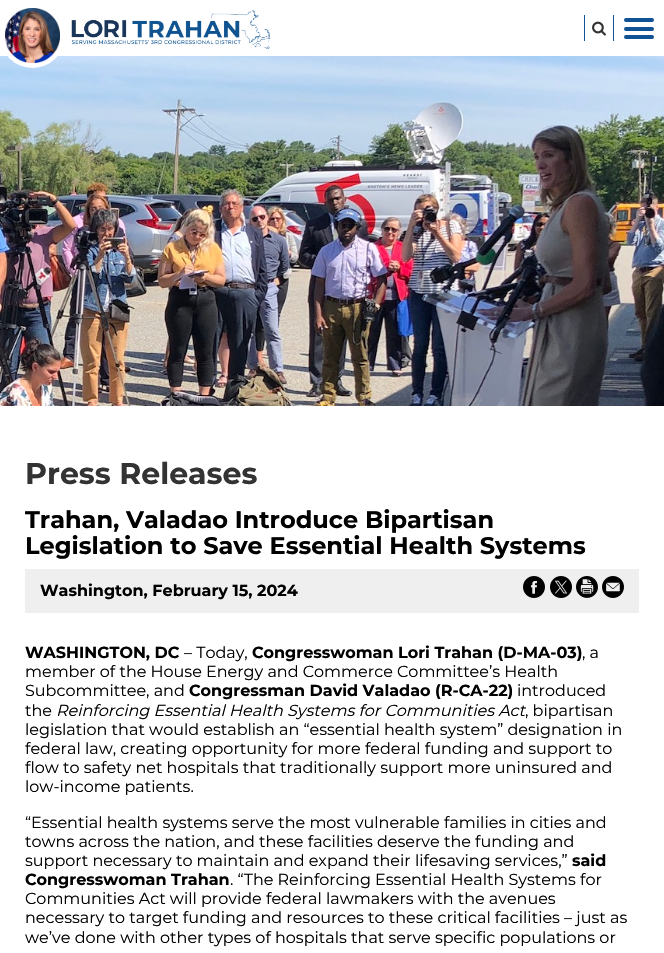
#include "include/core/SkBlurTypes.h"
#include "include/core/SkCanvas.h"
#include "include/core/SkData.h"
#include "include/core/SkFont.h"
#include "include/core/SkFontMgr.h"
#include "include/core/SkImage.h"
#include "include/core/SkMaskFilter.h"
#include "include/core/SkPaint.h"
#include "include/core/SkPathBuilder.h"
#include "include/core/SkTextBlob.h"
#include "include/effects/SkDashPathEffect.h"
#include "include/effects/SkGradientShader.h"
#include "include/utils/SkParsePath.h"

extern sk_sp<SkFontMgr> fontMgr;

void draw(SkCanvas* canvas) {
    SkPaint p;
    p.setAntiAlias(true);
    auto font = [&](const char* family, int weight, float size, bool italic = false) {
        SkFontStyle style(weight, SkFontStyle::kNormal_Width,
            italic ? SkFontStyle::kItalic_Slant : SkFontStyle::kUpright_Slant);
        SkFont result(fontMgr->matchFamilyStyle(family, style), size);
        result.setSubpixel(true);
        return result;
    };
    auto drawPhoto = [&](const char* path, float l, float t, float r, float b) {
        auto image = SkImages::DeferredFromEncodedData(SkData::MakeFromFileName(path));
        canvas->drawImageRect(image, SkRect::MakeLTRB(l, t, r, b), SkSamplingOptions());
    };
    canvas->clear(0xFFFFFFFF);
    drawPhoto("media/4.png", 0, 56, 664, 406);
    p.setColor(0xFFFFFFFF);
    canvas->drawCircle(32.5f, 35.5f, 32.5f, p);
    drawPhoto("media/1.png", 5, 8, 60, 63);
    drawPhoto("media/2.png", 71, 10, 270, 49);
    p.setColor(0xFF0F5394);
    canvas->drawRect(SkRect::MakeLTRB(613, 15, 614, 41), p);
    canvas->drawRect(SkRect::MakeLTRB(584, 15, 585, 41), p);
    drawPhoto("media/3.png", 592, 21, 606, 36);
    canvas->drawRoundRect(SkRect::MakeLTRB(624, 18, 654, 22), 2, 2, p);
    canvas->drawRoundRect(SkRect::MakeLTRB(624, 27, 654, 31), 2, 2, p);
    canvas->drawRoundRect(SkRect::MakeLTRB(624, 35, 654, 39), 2, 2, p);
    auto font1 = font("Montserrat", 700, 30);
    p.setColor(0xFF333333);
    canvas->drawString("Press Releases", 25, 484, font1, p);
    auto font2 = font("Montserrat", 700, 24);
    p.setColor(0xFF000000);
    canvas->drawString("Trahan, Valadao Introduce Bipartisan", 25, 528, font2, p);
    canvas->drawString("Legislation to Save Essential Health Systems", 25, 554, font2, p);
    p.setColor(0xFFEFEFEF);
    canvas->drawRect(SkRect::MakeLTRB(25, 569, 639, 613), p);
    auto font3 = font("Montserrat", 700, 16);
    p.setColor(0xFF000000);
    canvas->drawString("Washington, February 15, 2024", 40, 596, font3, p);
    drawPhoto("media/5.png", 523, 576, 545, 598);
    drawPhoto("media/6.png", 550, 576, 572, 598);
    drawPhoto("media/7.png", 576, 576, 598, 598);
    drawPhoto("media/8.png", 602, 576, 624, 598);
    canvas->drawString("WASHINGTON, DC", 25, 658, font3, p);
    auto font4 = font("Montserrat", 400, 16);
    canvas->drawString("– Today,", 184, 658, font4, p);
    canvas->drawString("Congresswoman Lori Trahan (D-MA-03)", 252, 658, font3, p);
    {
        const struct { const char* s; float x, y; } items[] = {
            {", a", 582, 658},
            {"member of the House Energy and Commerce Committee’s Health", 25, 677},
            {"Subcommittee, and", 25, 696},
        };
        for (auto [s, x, y] : items) {
            canvas->drawString(s, x, y, font4, p);
        }
    }
    canvas->drawString("Congressman David Valadao (R-CA-22)", 189, 696, font3, p);
    canvas->drawString("introduced", 517, 696, font4, p);
    canvas->drawString("the", 25, 716, font4, p);
    auto font5 = font("Montserrat", 400, 16, true);
    canvas->drawString("Reinforcing Essential Health Systems for Communities Act", 56, 716, font5, p);
    {
        const struct { const char* s; float x, y; } items[] = {
            {", bipartisan", 525, 716},
            {"legislation that would establish an “essential health system” designation in", 25, 735},
            {"federal law, creating opportunity for more federal funding and support to", 25, 754},
            {"flow to safety net hospitals that traditionally support more uninsured and", 25, 773},
            {"low-income patients.", 25, 792},
            {"“Essential health systems serve the most vulnerable families in cities and", 25, 828},
            {"towns across the nation, and these facilities deserve the funding and", 25, 847},
            {"support necessary to maintain and expand their lifesaving services,”", 25, 866},
        };
        for (auto [s, x, y] : items) {
            canvas->drawString(s, x, y, font4, p);
        }
    }
    canvas->drawString("said", 572, 866, font3, p);
    canvas->drawString("Congresswoman Trahan", 25, 885, font3, p);
    {
        const struct { const char* s; float x, y; } items[] = {
            {". “The Reinforcing Essential Health Systems for", 230, 885},
            {"Communities Act will provide federal lawmakers with the avenues", 25, 904},
            {"necessary to target funding and resources to these critical facilities – just as", 25, 923},
            {"we’ve done with other types of hospitals that serve specific populations or", 25, 943},
        };
        for (auto [s, x, y] : items) {
            canvas->drawString(s, x, y, font4, p);
        }
    }
}
